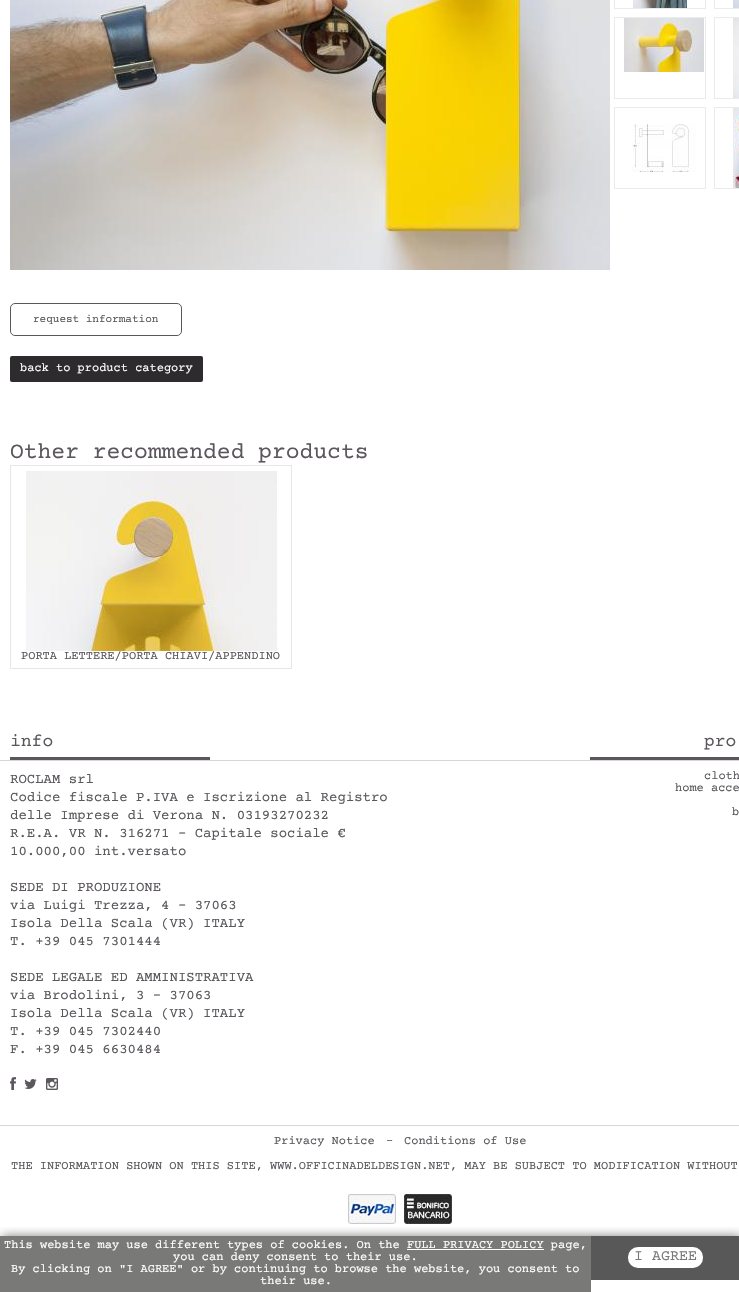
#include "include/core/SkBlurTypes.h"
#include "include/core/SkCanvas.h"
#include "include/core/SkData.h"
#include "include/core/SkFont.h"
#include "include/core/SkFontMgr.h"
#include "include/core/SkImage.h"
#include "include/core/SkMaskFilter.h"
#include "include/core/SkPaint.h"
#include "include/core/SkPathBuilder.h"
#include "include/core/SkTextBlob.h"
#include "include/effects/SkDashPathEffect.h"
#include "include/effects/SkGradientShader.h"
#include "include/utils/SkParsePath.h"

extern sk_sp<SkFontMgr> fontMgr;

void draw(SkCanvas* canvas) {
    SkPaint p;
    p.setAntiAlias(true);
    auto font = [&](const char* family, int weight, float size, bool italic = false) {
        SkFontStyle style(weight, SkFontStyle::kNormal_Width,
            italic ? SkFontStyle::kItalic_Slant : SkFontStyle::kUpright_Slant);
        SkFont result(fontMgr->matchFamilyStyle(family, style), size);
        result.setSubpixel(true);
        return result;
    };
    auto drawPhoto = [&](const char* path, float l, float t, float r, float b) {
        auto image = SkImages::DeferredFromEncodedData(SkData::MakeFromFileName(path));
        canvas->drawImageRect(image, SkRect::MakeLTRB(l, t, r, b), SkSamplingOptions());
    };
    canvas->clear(0xFFFFFFFF);
    drawPhoto("media/1.png", 10, 0, 610, 270);
    p.setStyle(SkPaint::kStroke_Style);
    p.setStrokeWidth(1);
    p.setColor(0xFFEBEBEB);
    canvas->drawRect(SkRect::MakeLTRB(614.5f, -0.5f, 705.5f, 8.5f), p);
    drawPhoto("media/2.png", 633, 0, 687, 8);
    canvas->drawRect(SkRect::MakeLTRB(714.5f, -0.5f, 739.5f, 8.5f), p);
    drawPhoto("media/3.png", 733, 0, 739, 8);
    canvas->drawRect(SkRect::MakeLTRB(614.5f, 17.5f, 705.5f, 98.5f), p);
    drawPhoto("media/4.png", 624, 18, 704, 72);
    canvas->drawRect(SkRect::MakeLTRB(714.5f, 17.5f, 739.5f, 98.5f), p);
    drawPhoto("media/5.png", 733, 18, 739, 98);
    canvas->drawRect(SkRect::MakeLTRB(614.5f, 107.5f, 705.5f, 188.5f), p);
    drawPhoto("media/6.png", 632, 124, 696, 172);
    canvas->drawRect(SkRect::MakeLTRB(714.5f, 107.5f, 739.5f, 188.5f), p);
    drawPhoto("media/7.png", 733, 108, 739, 188);
    p.setColor(0xFF5B575D);
    canvas->drawRoundRect(SkRect::MakeLTRB(10.5f, 303.5f, 181.5f, 335.5f), 4.5f, 4.5f, p);
    auto font1 = font("Courier Prime", 400, 11);
    p.setStyle(SkPaint::kFill_Style);
    canvas->drawString("request information", 33, 322, font1, p);
    p.setColor(0xFF2D2B2E);
    canvas->drawRoundRect(SkRect::MakeLTRB(10, 356, 203, 382), 2, 2, p);
    auto font2 = font("Courier Prime", 400, 12);
    p.setColor(0xFFFFFFFF);
    canvas->drawString("back to product category", 20, 371, font2, p);
    auto font3 = font("Courier Prime", 400, 23);
    p.setColor(0xFF5B575D);
    canvas->drawString("Other recommended products", 10, 458, font3, p);
    p.setStyle(SkPaint::kStroke_Style);
    p.setColor(0xFFE8E7E3);
    canvas->drawRect(SkRect::MakeLTRB(10.5f, 465.5f, 291.5f, 668.5f), p);
    drawPhoto("media/8.png", 26, 471, 277, 651);
    p.setStyle(SkPaint::kFill_Style);
    p.setColor(0xFF5B575D);
    canvas->drawString("PORTA LETTERE/PORTA CHIAVI/APPENDINO", 21, 659, font2, p);
    canvas->drawRect(SkRect::MakeLTRB(10, 757, 210, 760), p);
    auto font4 = font("Courier Prime", 400, 18);
    canvas->drawString("info", 10, 746, font4, p);
    p.setColor(0xFFD8D7D5);
    canvas->drawRect(SkRect::MakeLTRB(0, 760, 739, 761), p);
    auto font5 = font("Courier Prime", 400, 14);
    p.setColor(0xFF5B575D);
    {
        const struct { const char* s; float x, y; } items[] = {
            {"ROCLAM srl", 10, 783},
            {"Codice fiscale P.IVA e Iscrizione al Registro", 10, 801},
            {"delle Imprese di Verona N. 03193270232", 10, 819},
            {"R.E.A. VR N. 316271 - Capitale sociale €", 10, 837},
            {"10.000,00 int.versato", 10, 855},
            {"SEDE DI PRODUZIONE", 10, 891},
            {"via Luigi Trezza, 4 - 37063", 10, 909},
            {"Isola Della Scala (VR) ITALY", 10, 927},
            {"T. +39 045 7301444", 10, 945},
            {"SEDE LEGALE ED AMMINISTRATIVA", 10, 981},
            {"via Brodolini, 3 - 37063", 10, 999},
            {"Isola Della Scala (VR) ITALY", 10, 1017},
            {"T. +39 045 7302440", 10, 1035},
            {"F. +39 045 6630484", 10, 1053},
        };
        for (auto [s, x, y] : items) {
            canvas->drawString(s, x, y, font5, p);
        }
    }
    drawPhoto("media/9.png", 10, 1077, 16, 1090);
    drawPhoto("media/10.png", 24, 1079, 37, 1089);
    drawPhoto("media/11.png", 46, 1078, 58, 1090);
    canvas->drawRect(SkRect::MakeLTRB(590, 757, 739, 760), p);
    canvas->drawString("pro", 704, 746, font4, p);
    {
        const struct { const char* s; float x, y; } items[] = {
            {"cloth", 704, 779},
            {"home acce", 675, 791},
            {"b", 732, 815},
        };
        for (auto [s, x, y] : items) {
            canvas->drawString(s, x, y, font2, p);
        }
    }
    p.setColor(0xFFD8D7D5);
    canvas->drawRect(SkRect::MakeLTRB(0, 1125, 739, 1126), p);
    p.setColor(0xFF5B575D);
    {
        const struct { const char* s; float x, y; } items[] = {
            {"Privacy Notice", 274, 1144},
            {"-", 386, 1144},
            {"Conditions of Use", 404, 1144},
            {"THE INFORMATION SHOWN ON THIS SITE, WWW.OFFICINADELDESIGN.NET, MAY BE SUBJECT TO MODIFICATION WITHOUT", 11, 1169},
        };
        for (auto [s, x, y] : items) {
            canvas->drawString(s, x, y, font2, p);
        }
    }
    drawPhoto("media/12.png", 348, 1194, 396, 1224);
    drawPhoto("media/13.png", 404, 1194, 452, 1224);
    canvas->save();
    canvas->clipRect(SkRect::MakeLTRB(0, 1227, 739, 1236));
    p.setColor(0x80000000);
    p.setMaskFilter(SkMaskFilter::MakeBlur(kNormal_SkBlurStyle, 5));
    canvas->drawRect(SkRect::MakeLTRB(2, 1236, 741, 1292), p);
    p.setMaskFilter(nullptr);
    canvas->restore();
    p.setColor(0xFF797978);
    canvas->drawRect(SkRect::MakeLTRB(0, 1236, 591, 1292), p);
    p.setColor(0xFFFFFFFF);
    canvas->drawString("This website may use different types of cookies. On the FULL PRIVACY POLICY page,", 4, 1248, font2, p);
    canvas->drawRect(SkRect::MakeLTRB(407, 1249, 544, 1250), p);
    {
        const struct { const char* s; float x, y; } items[] = {
            {"you can deny consent to their use.", 173, 1260},
            {"By clicking on \"I AGREE\" or by continuing to browse the website, you consent to", 11, 1272},
            {"their use.", 260, 1284},
        };
        for (auto [s, x, y] : items) {
            canvas->drawString(s, x, y, font2, p);
        }
    }
    p.setColor(0xFF585858);
    canvas->drawRect(SkRect::MakeLTRB(591, 1236, 739, 1280), p);
    p.setColor(0xFFFFFFFF);
    canvas->drawRoundRect(SkRect::MakeLTRB(628, 1247, 703, 1268), 10, 10, p);
    auto font6 = font("Courier Prime", 400, 15);
    p.setColor(0xFF797978);
    canvas->drawString("I AGREE", 634, 1260, font6, p);
}
